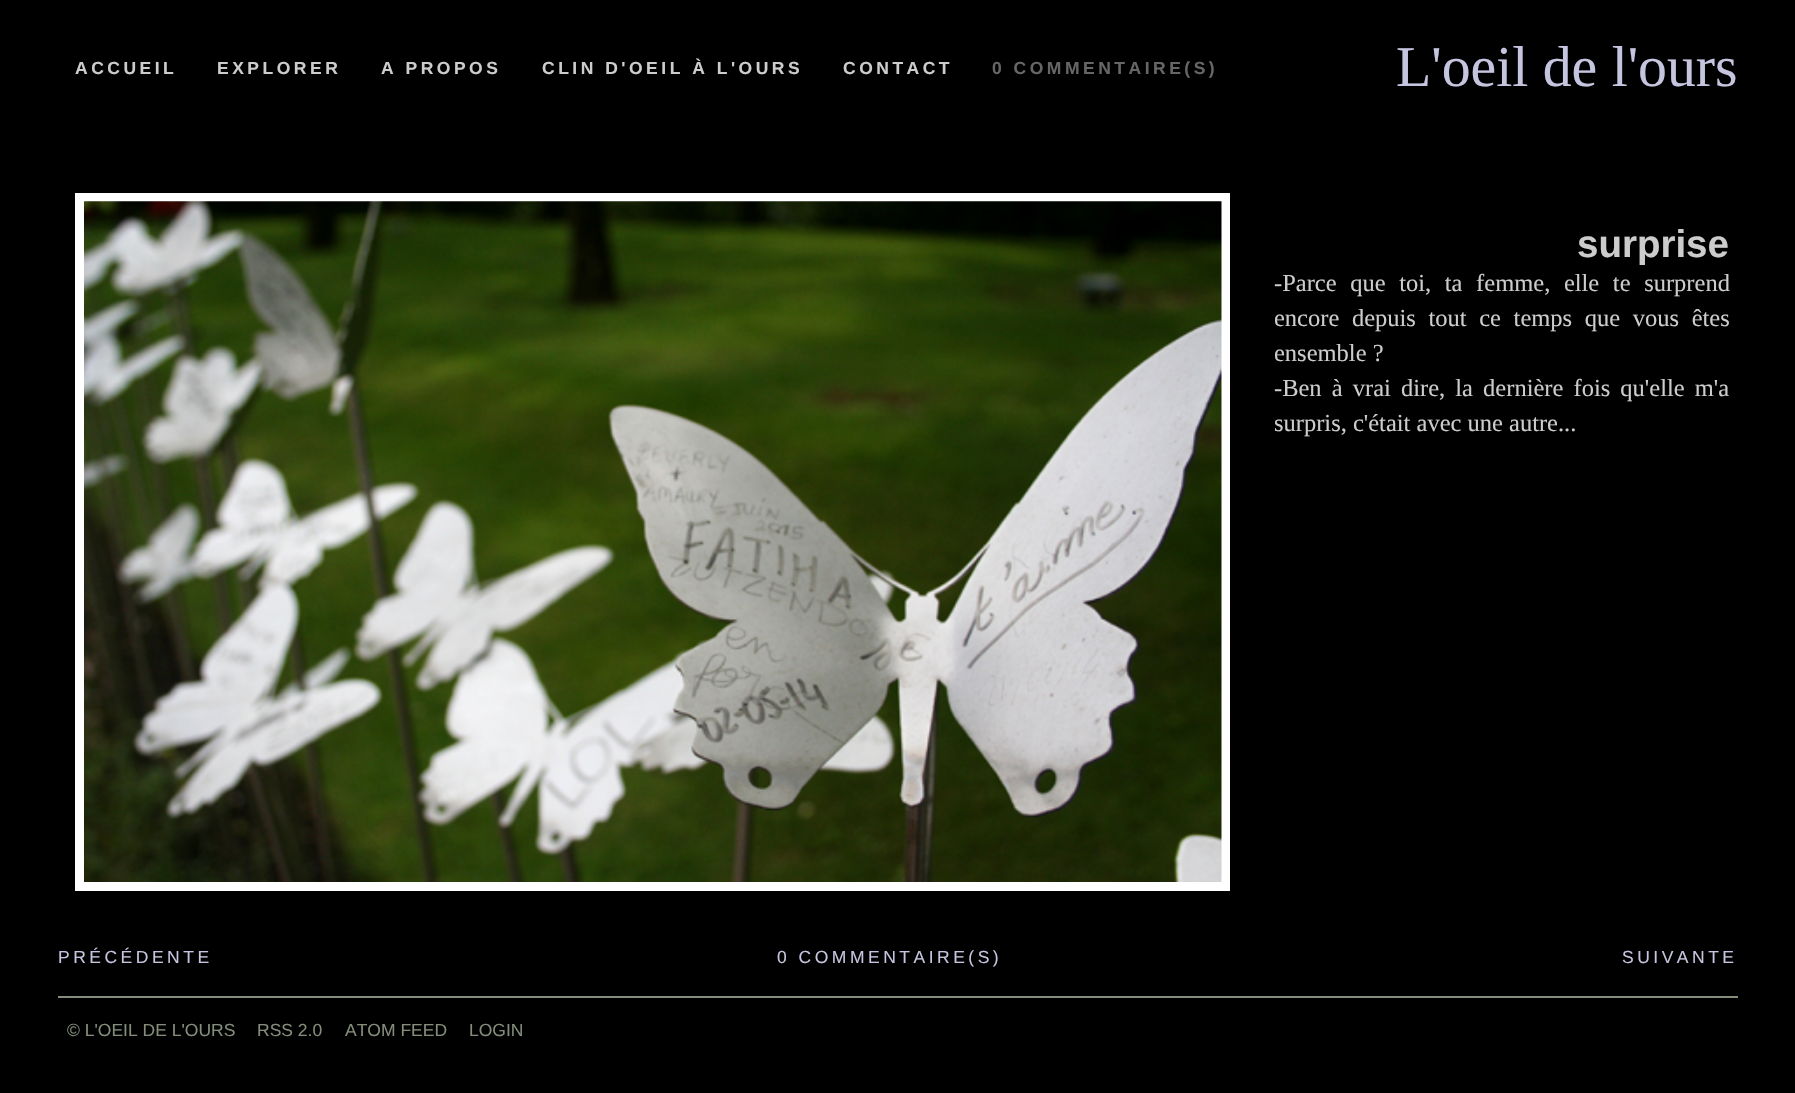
#include "include/core/SkBlurTypes.h"
#include "include/core/SkCanvas.h"
#include "include/core/SkData.h"
#include "include/core/SkFont.h"
#include "include/core/SkFontMgr.h"
#include "include/core/SkImage.h"
#include "include/core/SkMaskFilter.h"
#include "include/core/SkPaint.h"
#include "include/core/SkPathBuilder.h"
#include "include/core/SkTextBlob.h"
#include "include/effects/SkDashPathEffect.h"
#include "include/effects/SkGradientShader.h"
#include "include/utils/SkParsePath.h"

extern sk_sp<SkFontMgr> fontMgr;

void draw(SkCanvas* canvas) {
    SkPaint p;
    p.setAntiAlias(true);
    auto font = [&](const char* family, int weight, float size, bool italic = false) {
        SkFontStyle style(weight, SkFontStyle::kNormal_Width,
            italic ? SkFontStyle::kItalic_Slant : SkFontStyle::kUpright_Slant);
        SkFont result(fontMgr->matchFamilyStyle(family, style), size);
        result.setSubpixel(true);
        return result;
    };
    auto drawTracked = [&](const char* s, float x, float y, const SkFont& font, const SkPaint& ink, float letter, float word) {
        std::vector<SkGlyphID> glyphs(font.countText(s, strlen(s), SkTextEncoding::kUTF8));
        std::vector<float> xs(glyphs.size());
        font.textToGlyphs(s, strlen(s), SkTextEncoding::kUTF8, glyphs);
        font.getXPos(glyphs, xs, x);
        float extra = 0;
        for (size_t i = 0; i < glyphs.size(); i++) {
            xs[i] += extra;
            extra += letter + word * (glyphs[i] == font.unicharToGlyph(' '));
        }
        canvas->drawTextBlob(SkTextBlob::MakeFromPosHGlyphs(glyphs, xs, y, font), 0, 0, ink);
    };
    auto drawPhoto = [&](const char* path, float l, float t, float r, float b) {
        auto image = SkImages::DeferredFromEncodedData(SkData::MakeFromFileName(path));
        canvas->drawImageRect(image, SkRect::MakeLTRB(l, t, r, b), SkSamplingOptions());
    };
    canvas->clear(0xFF000000);
    auto font1 = font("Liberation Sans", 700, 17.5f);
    p.setColor(0xFFCCCCCC);
    {
        const struct { const char* s; float x, y; } items[] = {
            {"ACCUEIL", 75, 74},
            {"EXPLORER", 217, 74},
            {"A PROPOS", 381, 74},
            {"CLIN D'OEIL À L'OURS", 542, 74},
            {"CONTACT", 843, 74},
        };
        for (auto [s, x, y] : items) {
            drawTracked(s, x, y, font1, p, 3.5f, 0);
        }
    }
    p.setColor(0xFF666666);
    drawTracked("0 COMMENTAIRE(S)", 992, 74, font1, p, 3.5f, 0);
    auto font2 = font("Liberation Serif", 400, 57.75f);
    p.setColor(0xFFC6C5E0);
    canvas->drawString("L'oeil de l'ours", 1396, 86, font2, p);
    p.setColor(0xFFFFFFFF);
    canvas->drawRect(SkRect::MakeLTRB(75, 193, 1230, 891), p);
    drawPhoto("media/1.png", 84, 201, 1222, 882);
    auto font3 = font("Liberation Sans", 700, 38.5f);
    p.setColor(0xFFCCCCCC);
    canvas->drawString("surprise", 1577, 257, font3, p);
    auto font4 = font("Liberation Serif", 400, 24.5f);
    drawTracked("-Parce que toi, ta femme, elle te surprend", 1274, 291, font4, p, 0, 7.5f);
    drawTracked("encore depuis tout ce temps que vous êtes", 1274, 326, font4, p, 0, 6.5f);
    canvas->drawString("ensemble ?", 1274, 361, font4, p);
    drawTracked("-Ben à vrai dire, la dernière fois qu'elle m'a", 1274, 396, font4, p, 0, 4);
    canvas->drawString("surpris, c'était avec une autre...", 1274, 431, font4, p);
    auto font5 = font("Liberation Sans", 400, 17.5f);
    p.setColor(0xFFC6C5E0);
    {
        const struct { const char* s; float x, y; } items[] = {
            {"PRÉCÉDENTE", 58, 963},
            {"0 COMMENTAIRE(S)", 777, 963},
            {"SUIVANTE", 1622, 963},
        };
        for (auto [s, x, y] : items) {
            drawTracked(s, x, y, font5, p, 3.5f, 0);
        }
    }
    p.setColor(0xFF838D7A);
    canvas->drawRect(SkRect::MakeLTRB(58, 996, 1738, 998), p);
    {
        const struct { const char* s; float x, y; } items[] = {
            {"© L'OEIL DE L'OURS", 67, 1036},
            {"RSS 2.0", 257, 1036},
            {"ATOM FEED", 345, 1036},
            {"LOGIN", 469, 1036},
        };
        for (auto [s, x, y] : items) {
            canvas->drawString(s, x, y, font5, p);
        }
    }
}
